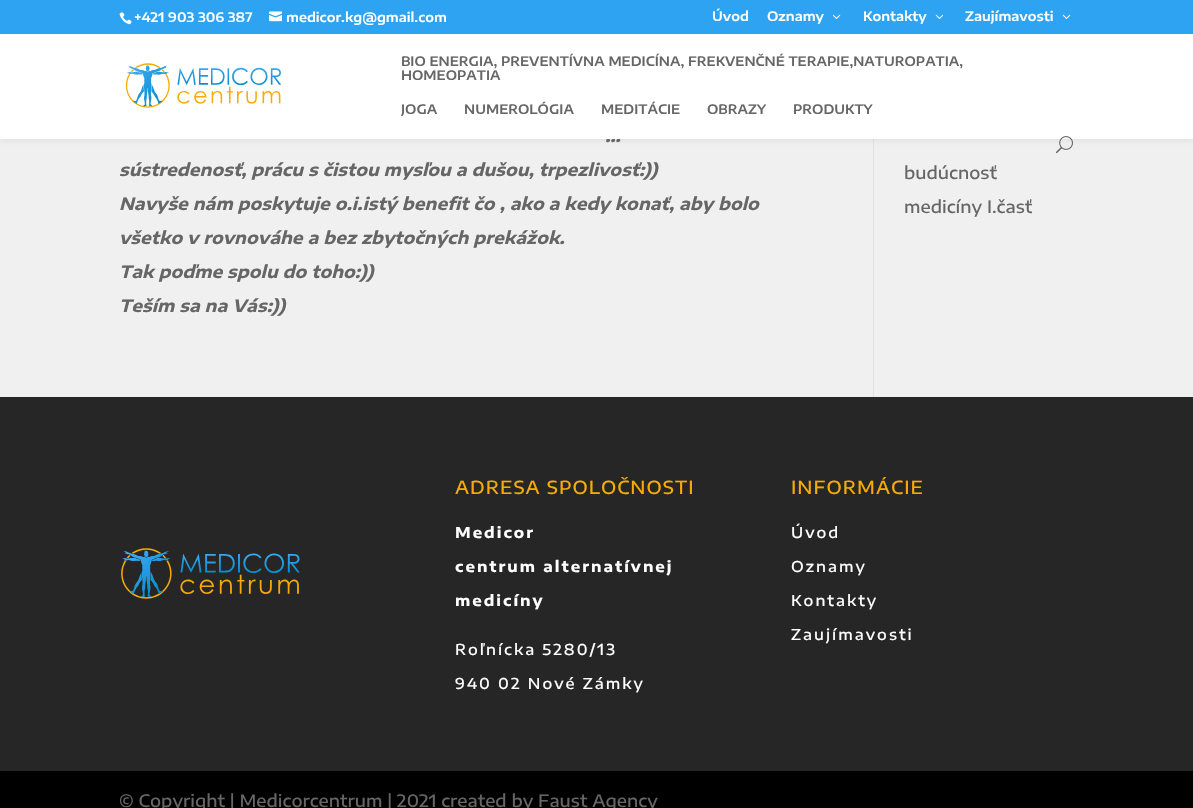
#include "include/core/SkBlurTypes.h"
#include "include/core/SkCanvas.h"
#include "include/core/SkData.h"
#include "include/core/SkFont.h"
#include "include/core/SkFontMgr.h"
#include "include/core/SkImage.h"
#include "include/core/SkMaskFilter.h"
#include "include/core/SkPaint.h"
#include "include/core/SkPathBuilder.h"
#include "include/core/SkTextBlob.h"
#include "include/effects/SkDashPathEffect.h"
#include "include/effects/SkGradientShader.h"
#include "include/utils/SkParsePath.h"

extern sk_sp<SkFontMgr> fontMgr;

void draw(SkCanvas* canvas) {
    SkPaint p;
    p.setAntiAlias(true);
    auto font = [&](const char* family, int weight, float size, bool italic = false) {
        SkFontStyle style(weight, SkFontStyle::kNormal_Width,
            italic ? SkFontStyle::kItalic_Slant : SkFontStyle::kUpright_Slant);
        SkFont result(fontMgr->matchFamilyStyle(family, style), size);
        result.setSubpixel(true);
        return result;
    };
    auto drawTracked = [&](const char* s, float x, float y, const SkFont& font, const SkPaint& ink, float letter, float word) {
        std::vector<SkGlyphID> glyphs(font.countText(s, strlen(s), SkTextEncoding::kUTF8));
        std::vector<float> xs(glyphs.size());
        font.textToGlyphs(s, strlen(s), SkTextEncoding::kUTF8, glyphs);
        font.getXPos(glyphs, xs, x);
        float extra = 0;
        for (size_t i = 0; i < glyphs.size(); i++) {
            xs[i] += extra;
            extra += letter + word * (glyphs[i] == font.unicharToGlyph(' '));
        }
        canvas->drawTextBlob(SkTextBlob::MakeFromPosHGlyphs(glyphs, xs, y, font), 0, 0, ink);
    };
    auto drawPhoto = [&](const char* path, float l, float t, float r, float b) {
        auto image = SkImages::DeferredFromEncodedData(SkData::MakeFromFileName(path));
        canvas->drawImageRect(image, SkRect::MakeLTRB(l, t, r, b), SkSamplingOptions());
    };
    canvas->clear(0xFFF0F0F0);
    p.setColor(0xFFE2E2E2);
    canvas->drawRect(SkRect::MakeLTRB(873, 139, 874, 397), p);
    p.setColor(0x1A000000);
    p.setMaskFilter(SkMaskFilter::MakeBlur(kNormal_SkBlurStyle, 3.5f));
    canvas->drawRect(SkRect::MakeLTRB(0, 34, 1193, 139), p);
    p.setMaskFilter(nullptr);
    p.setColor(0xFF2EA3F2);
    canvas->drawRect(SkRect::MakeLTRB(0, 0, 1193, 34), p);
    drawPhoto("media/1.png", 119, 12, 132, 25);
    auto font1 = font("Encode Sans Expanded", 600, 13);
    p.setColor(0xFFFFFFFF);
    canvas->drawString("+421 903 306 387", 134, 22, font1, p);
    drawPhoto("media/2.png", 269, 11, 282, 22);
    {
        const struct { const char* s; float x, y; } items[] = {
            {"medicor.kg@gmail.com", 286, 22},
            {"Úvod", 712, 21},
            {"Oznamy", 767, 21},
        };
        for (auto [s, x, y] : items) {
            canvas->drawString(s, x, y, font1, p);
        }
    }
    drawPhoto("media/3.png", 832, 14, 841, 19);
    canvas->drawString("Kontakty", 863, 21, font1, p);
    drawPhoto("media/3.png", 935, 14, 944, 19);
    canvas->drawString("Zaujímavosti", 965, 21, font1, p);
    drawPhoto("media/3.png", 1062, 14, 1071, 19);
    auto font2 = font("Encode Sans Expanded", 700, 17, true);
    p.setColor(0xFF666666);
    canvas->drawString("…", 605, 142, font2, p);
    p.setColor(0xFFFFFFFF);
    canvas->drawRect(SkRect::MakeLTRB(0, 34, 1193, 139), p);
    drawPhoto("media/4.png", 125, 63, 281, 108);
    p.setColor(0xFF666666);
    {
        const struct { const char* s; float x, y; } items[] = {
            {"BIO ENERGIA, PREVENTÍVNA MEDICÍNA, FREKVENČNÉ TERAPIE,NATUROPATIA,", 401, 66},
            {"HOMEOPATIA", 401, 80},
            {"JOGA", 401, 114},
            {"NUMEROLÓGIA", 464, 114},
            {"MEDITÁCIE", 601, 114},
            {"OBRAZY", 707, 114},
            {"PRODUKTY", 793, 114},
        };
        for (auto [s, x, y] : items) {
            canvas->drawString(s, x, y, font1, p);
        }
    }
    drawPhoto("media/5.png", 1056, 136, 1073, 154);
    {
        const struct { const char* s; float x, y; } items[] = {
            {"sústredenosť, prácu s čistou mysľou a dušou, trpezlivosť:))", 119, 176},
            {"Navyše nám poskytuje o.i.istý benefit čo , ako a kedy konať, aby bolo", 119, 210},
            {"všetko v rovnováhe a bez zbytočných prekážok.", 119, 244},
            {"Tak poďme spolu do toho:))", 119, 278},
            {"Teším sa na Vás:))", 119, 312},
        };
        for (auto [s, x, y] : items) {
            canvas->drawString(s, x, y, font2, p);
        }
    }
    auto font3 = font("Encode Sans Expanded", 500, 17);
    canvas->drawString("budúcnosť", 904, 179, font3, p);
    canvas->drawString("medicíny I.časť", 904, 213, font3, p);
    p.setColor(0xFF262626);
    canvas->drawRect(SkRect::MakeLTRB(0, 397, 1193, 771), p);
    drawPhoto("media/6.png", 121, 548, 300, 599);
    auto font4 = font("Encode Sans Expanded", 500, 18);
    p.setColor(0xFFF7AB06);
    drawTracked("ADRESA SPOLOČNOSTI", 455, 494, font4, p, 1, 0);
    auto font5 = font("Encode Sans Expanded", 700, 15);
    p.setColor(0xFFFFFFFF);
    {
        const struct { const char* s; float x, y; } items[] = {
            {"Medicor", 455, 538},
            {"centrum alternatívnej", 455, 572},
            {"medicíny", 455, 606},
        };
        for (auto [s, x, y] : items) {
            drawTracked(s, x, y, font5, p, 2, 0);
        }
    }
    auto font6 = font("Encode Sans Expanded", 500, 15);
    drawTracked("Roľnícka 5280/13", 455, 655, font6, p, 2, 0);
    drawTracked("940 02 Nové Zámky", 455, 689, font6, p, 2, 0);
    p.setColor(0xFFF7AB06);
    drawTracked("INFORMÁCIE", 791, 494, font4, p, 1, 0);
    p.setColor(0xFFFFFFFF);
    {
        const struct { const char* s; float x, y; } items[] = {
            {"Úvod", 791, 538},
            {"Oznamy", 791, 572},
            {"Kontakty", 791, 606},
            {"Zaujímavosti", 791, 640},
        };
        for (auto [s, x, y] : items) {
            drawTracked(s, x, y, font6, p, 2, 0);
        }
    }
    p.setColor(0xFF000000);
    canvas->drawRect(SkRect::MakeLTRB(0, 771, 1193, 808), p);
    p.setColor(0xFF666666);
    canvas->drawString("© Copyright | Medicorcentrum | 2021 created by Faust Agency", 119, 807, font3, p);
}
